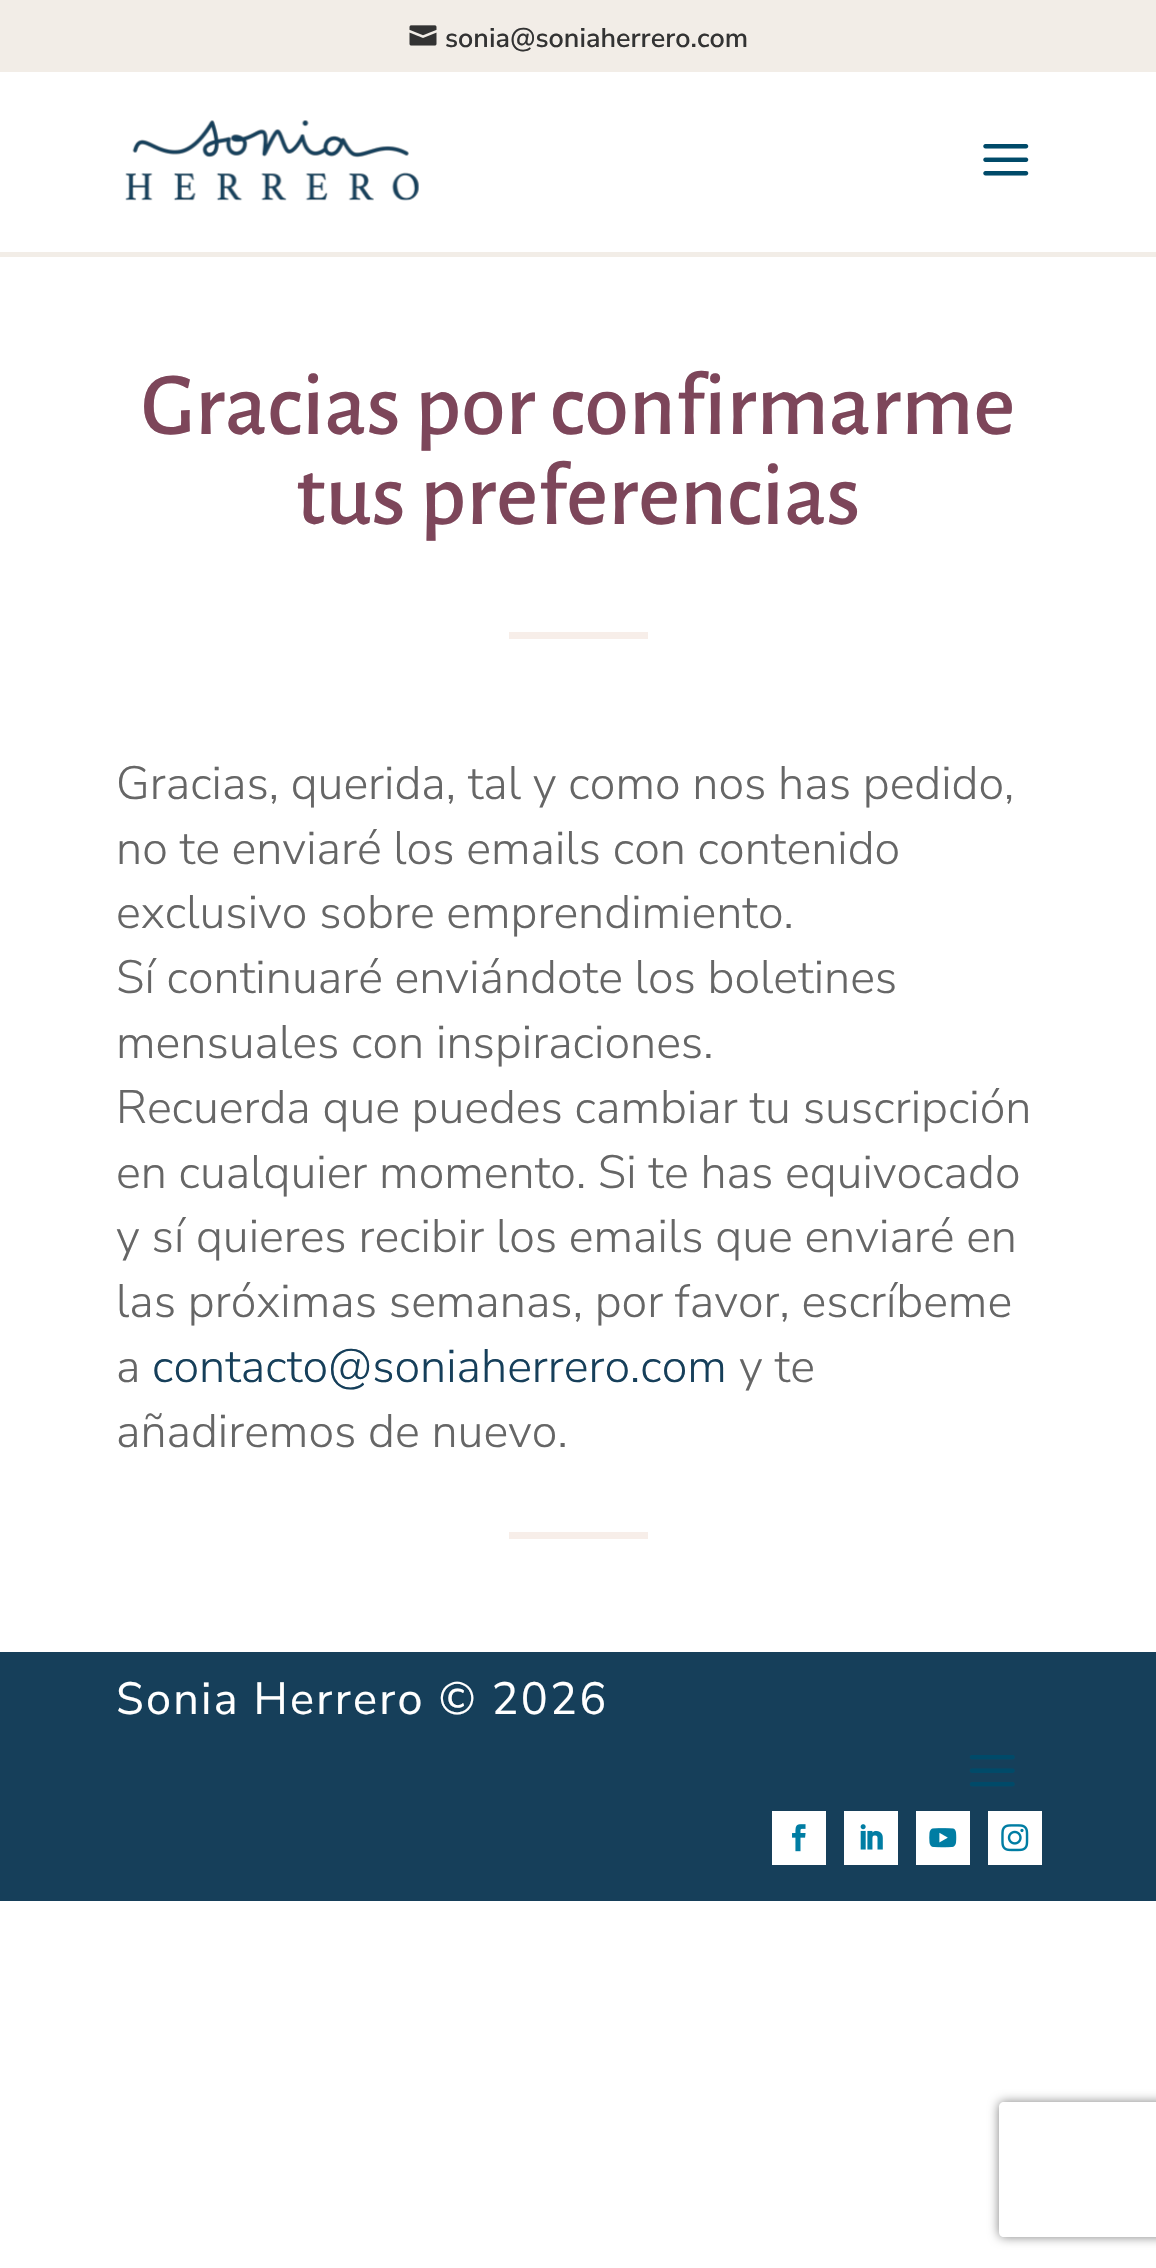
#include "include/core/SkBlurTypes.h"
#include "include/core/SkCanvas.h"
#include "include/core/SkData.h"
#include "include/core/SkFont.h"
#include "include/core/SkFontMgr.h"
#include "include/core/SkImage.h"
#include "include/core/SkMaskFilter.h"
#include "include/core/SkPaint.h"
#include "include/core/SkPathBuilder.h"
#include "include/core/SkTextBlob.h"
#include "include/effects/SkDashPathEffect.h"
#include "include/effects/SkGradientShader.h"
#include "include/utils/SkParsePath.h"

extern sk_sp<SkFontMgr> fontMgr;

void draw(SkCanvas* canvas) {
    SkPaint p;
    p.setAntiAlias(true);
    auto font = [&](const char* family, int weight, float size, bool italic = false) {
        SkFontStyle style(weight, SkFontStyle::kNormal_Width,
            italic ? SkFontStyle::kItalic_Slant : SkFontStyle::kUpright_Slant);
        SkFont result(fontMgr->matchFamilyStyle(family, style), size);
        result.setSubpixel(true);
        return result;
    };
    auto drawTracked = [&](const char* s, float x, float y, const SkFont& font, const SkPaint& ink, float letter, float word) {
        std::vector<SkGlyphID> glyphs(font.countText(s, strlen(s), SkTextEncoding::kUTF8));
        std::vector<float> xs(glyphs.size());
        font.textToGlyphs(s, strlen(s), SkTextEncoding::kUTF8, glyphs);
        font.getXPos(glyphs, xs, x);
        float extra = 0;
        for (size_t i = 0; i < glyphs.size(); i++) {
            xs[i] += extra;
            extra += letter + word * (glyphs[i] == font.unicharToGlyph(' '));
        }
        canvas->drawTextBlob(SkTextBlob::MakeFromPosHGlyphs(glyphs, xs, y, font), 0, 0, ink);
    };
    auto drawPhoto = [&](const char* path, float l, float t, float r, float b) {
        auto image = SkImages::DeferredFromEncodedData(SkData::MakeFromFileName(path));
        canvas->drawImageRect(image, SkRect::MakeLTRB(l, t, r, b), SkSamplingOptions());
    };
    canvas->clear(0xFFFFFFFF);
    p.setColor(0xFFF2EDE7);
    canvas->drawRect(SkRect::MakeLTRB(0, 0, 1156, 72), p);
    drawPhoto("media/1.png", 409, 25, 437, 46);
    auto font1 = font("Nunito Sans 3", 200, 27);
    p.setColor(0xFF333333);
    canvas->drawString("sonia@soniaherrero.com", 445, 47, font1, p);
    p.setColor(0xFFF2EDE7);
    canvas->drawPath(SkPathBuilder().moveTo(0, 252).lineTo(0, 257).lineTo(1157, 257).lineTo(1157, 77).lineTo(1156, 77).lineTo(1156, 252).close().detach(), p);
    drawPhoto("media/2.png", 125, 120, 419, 201);
    drawPhoto("media/3.png", 983, 144, 1029, 176);
    auto font2 = font("Alegreya Sans", 500, 90);
    p.setColor(0xFF7D465A);
    canvas->drawString("Gracias por confirmarme", 141, 434, font2, p);
    canvas->drawString("tus preferencias", 296, 524, font2, p);
    p.setColor(0xFFF7EEE9);
    canvas->drawRect(SkRect::MakeLTRB(509, 632, 648, 639), p);
    auto font3 = font("Nunito Sans", 200, 46.75f);
    p.setColor(0xFF666666);
    {
        const struct { const char* s; float x, y; } items[] = {
            {"Gracias, querida, tal y como nos has pedido,", 116, 799},
            {"no te enviaré los emails con contenido", 116, 864},
            {"exclusivo sobre emprendimiento.", 116, 928},
            {"Sí continuaré enviándote los boletines", 116, 993},
            {"mensuales con inspiraciones.", 116, 1058},
            {"Recuerda que puedes cambiar tu suscripción", 116, 1123},
            {"en cualquier momento. Si te has equivocado", 116, 1188},
            {"y sí quieres recibir los emails que enviaré en", 116, 1252},
            {"las próximas semanas, por favor, escríbeme", 116, 1317},
            {"a", 116, 1382},
        };
        for (auto [s, x, y] : items) {
            canvas->drawString(s, x, y, font3, p);
        }
    }
    p.setColor(0xFF163F5A);
    canvas->drawString("contacto@soniaherrero.com", 152, 1382, font3, p);
    p.setColor(0xFF666666);
    canvas->drawString("y te", 739, 1382, font3, p);
    canvas->drawString("añadiremos de nuevo.", 116, 1447, font3, p);
    p.setColor(0xFFF7EEE9);
    canvas->drawRect(SkRect::MakeLTRB(509, 1532, 648, 1539), p);
    p.setColor(0xFF163F5A);
    canvas->drawRect(SkRect::MakeLTRB(0, 1652, 1156, 1901), p);
    auto font4 = font("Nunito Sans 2", 200, 45);
    p.setColor(0xFFFFFFFF);
    drawTracked("Sonia Herrero © 2026", 116, 1714, font4, p, 2.25f, 0);
    drawPhoto("media/4.png", 969, 1755, 1015, 1787);
    canvas->drawRect(SkRect::MakeLTRB(772, 1811, 826, 1865), p);
    drawPhoto("media/5.png", 792, 1824, 806, 1852);
    canvas->drawRect(SkRect::MakeLTRB(844, 1811, 898, 1865), p);
    drawPhoto("media/6.png", 860, 1824, 883, 1850);
    canvas->drawRect(SkRect::MakeLTRB(916, 1811, 970, 1865), p);
    drawPhoto("media/7.png", 929, 1828, 957, 1848);
    canvas->drawRect(SkRect::MakeLTRB(988, 1811, 1042, 1865), p);
    drawPhoto("media/8.png", 1001, 1824, 1029, 1852);
    canvas->save();
    canvas->clipPath(SkPathBuilder(SkPathFillType::kEvenOdd).moveTo(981, 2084).lineTo(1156, 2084).lineTo(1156, 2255).lineTo(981, 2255).close().moveTo(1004, 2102).lineTo(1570, 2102).cubicTo(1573, 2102, 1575, 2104, 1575, 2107).lineTo(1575, 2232).cubicTo(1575, 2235, 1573, 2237, 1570, 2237).lineTo(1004, 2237).cubicTo(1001, 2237, 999, 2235, 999, 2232).lineTo(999, 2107).cubicTo(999, 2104, 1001, 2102, 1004, 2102).close().detach(), true);
    p.setColor(0xFF808080);
    p.setMaskFilter(SkMaskFilter::MakeBlur(kNormal_SkBlurStyle, 5.5f));
    canvas->drawRoundRect(SkRect::MakeLTRB(999, 2102, 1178, 2237), 5, 5, p);
    p.setMaskFilter(nullptr);
    canvas->restore();
}
